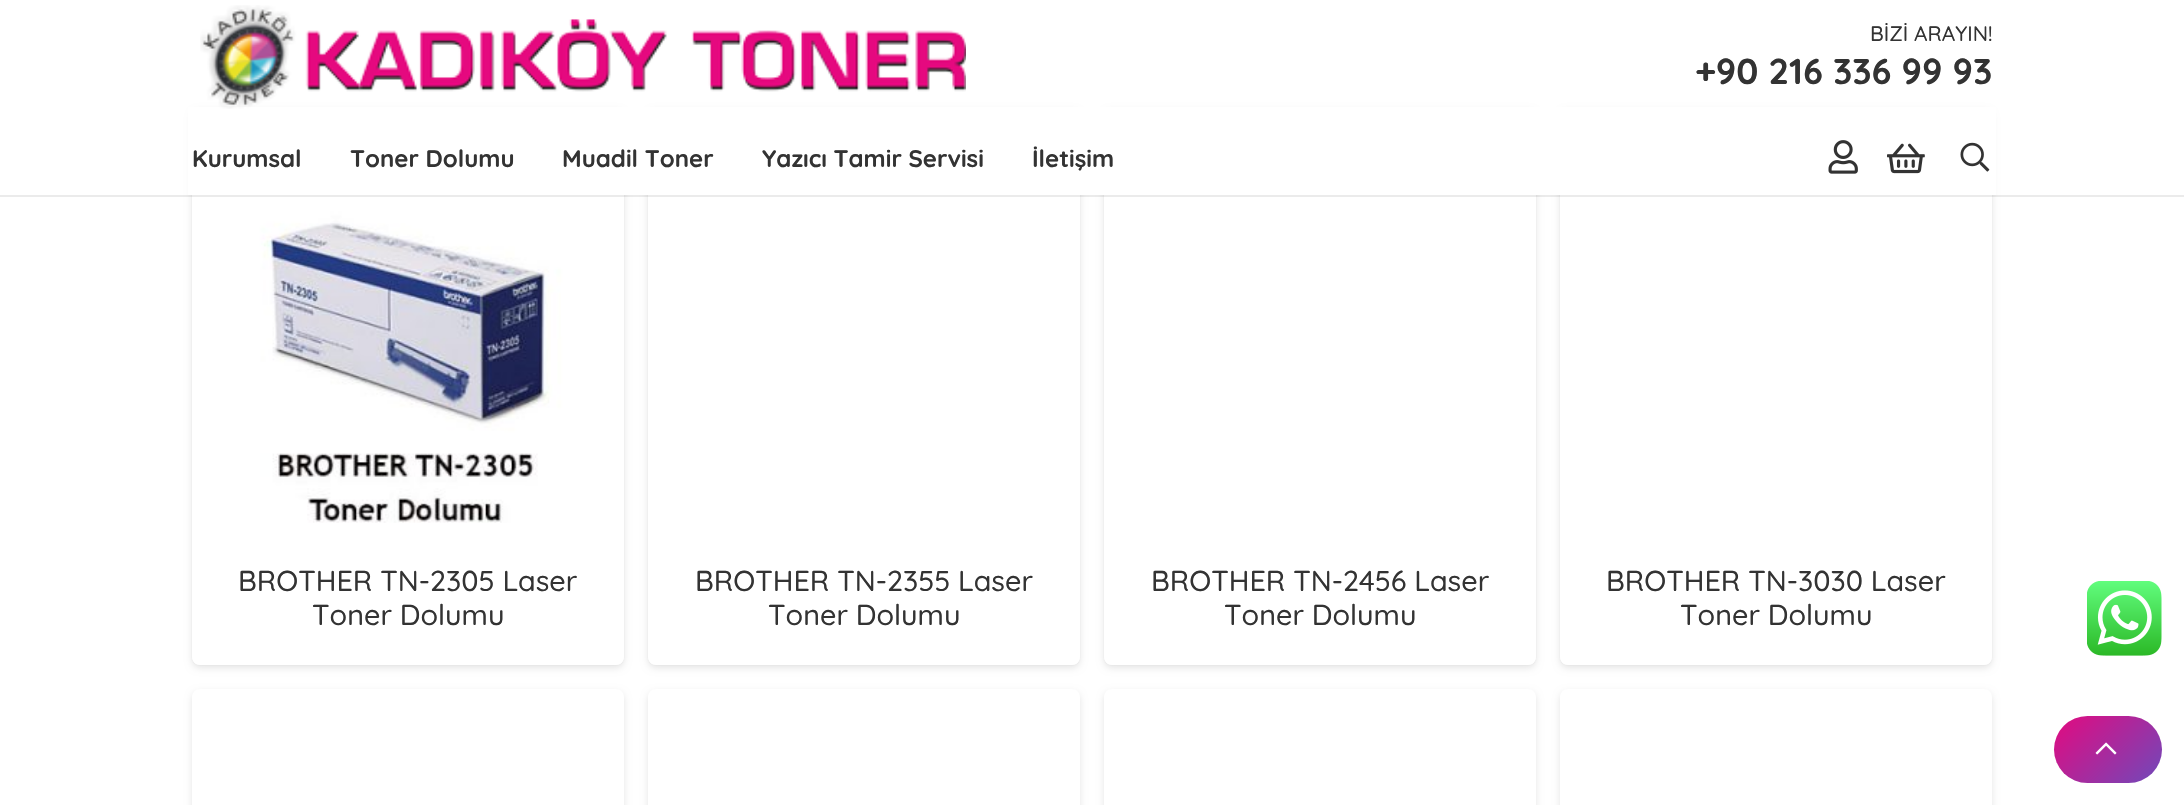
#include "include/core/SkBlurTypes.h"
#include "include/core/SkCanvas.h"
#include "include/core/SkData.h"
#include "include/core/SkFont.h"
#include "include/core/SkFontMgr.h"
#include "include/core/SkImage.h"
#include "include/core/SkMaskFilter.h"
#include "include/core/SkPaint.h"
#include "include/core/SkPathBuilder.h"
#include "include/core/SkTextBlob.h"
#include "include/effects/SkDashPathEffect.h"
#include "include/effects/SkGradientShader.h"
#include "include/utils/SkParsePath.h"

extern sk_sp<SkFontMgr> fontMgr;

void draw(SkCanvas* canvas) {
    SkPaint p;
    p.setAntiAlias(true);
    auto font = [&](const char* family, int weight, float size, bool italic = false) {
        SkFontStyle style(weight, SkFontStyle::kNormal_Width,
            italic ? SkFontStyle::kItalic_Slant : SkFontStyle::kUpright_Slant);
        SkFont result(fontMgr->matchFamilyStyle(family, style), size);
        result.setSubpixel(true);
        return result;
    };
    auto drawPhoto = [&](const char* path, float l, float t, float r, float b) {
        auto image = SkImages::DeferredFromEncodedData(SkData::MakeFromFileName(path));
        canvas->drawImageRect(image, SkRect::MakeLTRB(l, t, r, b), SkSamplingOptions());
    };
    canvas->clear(0xFFFFFFFF);
    p.setColor(0x1A000000);
    p.setMaskFilter(SkMaskFilter::MakeBlur(kNormal_SkBlurStyle, 3.5f));
    canvas->drawRoundRect(SkRect::MakeLTRB(192, 111, 624, 668), 8, 8, p);
    p.setMaskFilter(nullptr);
    p.setMaskFilter(SkMaskFilter::MakeBlur(kNormal_SkBlurStyle, 0.5f));
    canvas->drawRoundRect(SkRect::MakeLTRB(192, 108, 624, 665), 8, 8, p);
    p.setMaskFilter(nullptr);
    p.setColor(0xFFFFFFFF);
    canvas->drawRoundRect(SkRect::MakeLTRB(192, 108, 624, 665), 8, 8, p);
    p.setColor(0x1A000000);
    p.setMaskFilter(SkMaskFilter::MakeBlur(kNormal_SkBlurStyle, 3.5f));
    canvas->drawRoundRect(SkRect::MakeLTRB(648, 111, 1080, 668), 8, 8, p);
    p.setMaskFilter(nullptr);
    p.setMaskFilter(SkMaskFilter::MakeBlur(kNormal_SkBlurStyle, 0.5f));
    canvas->drawRoundRect(SkRect::MakeLTRB(648, 108, 1080, 665), 8, 8, p);
    p.setMaskFilter(nullptr);
    p.setColor(0xFFFFFFFF);
    canvas->drawRoundRect(SkRect::MakeLTRB(648, 108, 1080, 665), 8, 8, p);
    p.setColor(0x1A000000);
    p.setMaskFilter(SkMaskFilter::MakeBlur(kNormal_SkBlurStyle, 3.5f));
    canvas->drawRoundRect(SkRect::MakeLTRB(1104, 111, 1536, 668), 8, 8, p);
    p.setMaskFilter(nullptr);
    p.setMaskFilter(SkMaskFilter::MakeBlur(kNormal_SkBlurStyle, 0.5f));
    canvas->drawRoundRect(SkRect::MakeLTRB(1104, 108, 1536, 665), 8, 8, p);
    p.setMaskFilter(nullptr);
    p.setColor(0xFFFFFFFF);
    canvas->drawRoundRect(SkRect::MakeLTRB(1104, 108, 1536, 665), 8, 8, p);
    p.setColor(0x1A000000);
    p.setMaskFilter(SkMaskFilter::MakeBlur(kNormal_SkBlurStyle, 3.5f));
    canvas->drawRoundRect(SkRect::MakeLTRB(1560, 111, 1992, 668), 8, 8, p);
    p.setMaskFilter(nullptr);
    p.setMaskFilter(SkMaskFilter::MakeBlur(kNormal_SkBlurStyle, 0.5f));
    canvas->drawRoundRect(SkRect::MakeLTRB(1560, 108, 1992, 665), 8, 8, p);
    p.setMaskFilter(nullptr);
    p.setColor(0xFFFFFFFF);
    canvas->drawRoundRect(SkRect::MakeLTRB(1560, 108, 1992, 665), 8, 8, p);
    canvas->drawRect(SkRect::MakeLTRB(188, 107, 1996, 195), p);
    drawPhoto("media/1.png", 200, 5, 966, 109);
    auto font1 = font("Quicksand", 500, 21);
    p.setColor(0xFF333333);
    canvas->drawString("BİZİ ARAYIN!", 1870, 41, font1, p);
    auto font2 = font("Quicksand", 700, 36);
    canvas->drawString("+90 216 336 99 93", 1695, 84, font2, p);
    drawPhoto("media/5.png", 238, 195, 585, 523);
    p.setColor(0x14000000);
    canvas->drawRect(SkRect::MakeLTRB(0, 195, 2184, 197), p);
    auto font3 = font("Quicksand", 700, 24);
    p.setColor(0xFF333333);
    {
        const struct { const char* s; float x, y; } items[] = {
            {"Kurumsal", 192, 167},
            {"Toner Dolumu", 350, 167},
            {"Muadil Toner", 562, 167},
            {"Yazıcı Tamir Servisi", 762, 167},
            {"İletişim", 1032, 167},
        };
        for (auto [s, x, y] : items) {
            canvas->drawString(s, x, y, font3, p);
        }
    }
    drawPhoto("media/2.png", 1828, 140, 1858, 174);
    drawPhoto("media/3.png", 1887, 143, 1925, 174);
    drawPhoto("media/4.png", 1960, 142, 1990, 172);
    p.setColor(0xFFFFFFFF);
    canvas->drawPath(SkPathBuilder().moveTo(192, 540).lineTo(624, 540).lineTo(624, 657).cubicTo(624, 661.5f, 620.5f, 665, 616, 665).lineTo(200, 665).cubicTo(195.5f, 665, 192, 661.5f, 192, 657).close().detach(), p);
    auto font4 = font("Quicksand", 500, 28.75f);
    p.setColor(0xFF333333);
    canvas->drawString("BROTHER TN-2305 Laser", 238, 591, font4, p);
    canvas->drawString("Toner Dolumu", 312, 625, font4, p);
    p.setColor(0xFFFFFFFF);
    canvas->drawPath(SkPathBuilder().moveTo(648, 540).lineTo(1080, 540).lineTo(1080, 657).cubicTo(1080, 661.5f, 1076.5f, 665, 1072, 665).lineTo(656, 665).cubicTo(651.5f, 665, 648, 661.5f, 648, 657).close().detach(), p);
    p.setColor(0xFF333333);
    canvas->drawString("BROTHER TN-2355 Laser", 695, 591, font4, p);
    canvas->drawString("Toner Dolumu", 768, 625, font4, p);
    p.setColor(0xFFFFFFFF);
    canvas->drawPath(SkPathBuilder().moveTo(1104, 540).lineTo(1536, 540).lineTo(1536, 657).cubicTo(1536, 661.5f, 1532.5f, 665, 1528, 665).lineTo(1112, 665).cubicTo(1107.5f, 665, 1104, 661.5f, 1104, 657).close().detach(), p);
    p.setColor(0xFF333333);
    canvas->drawString("BROTHER TN-2456 Laser", 1151, 591, font4, p);
    canvas->drawString("Toner Dolumu", 1224, 625, font4, p);
    p.setColor(0xFFFFFFFF);
    canvas->drawPath(SkPathBuilder().moveTo(1560, 540).lineTo(1992, 540).lineTo(1992, 657).cubicTo(1992, 661.5f, 1988.5f, 665, 1984, 665).lineTo(1568, 665).cubicTo(1563.5f, 665, 1560, 661.5f, 1560, 657).close().detach(), p);
    p.setColor(0xFF333333);
    canvas->drawString("BROTHER TN-3030 Laser", 1606, 591, font4, p);
    canvas->drawString("Toner Dolumu", 1680, 625, font4, p);
    canvas->save();
    canvas->clipPath(SkPathBuilder(SkPathFillType::kEvenOdd).moveTo(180, 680).lineTo(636, 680).lineTo(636, 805).lineTo(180, 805).close().moveTo(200, 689).lineTo(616, 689).cubicTo(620.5f, 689, 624, 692.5f, 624, 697).lineTo(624, 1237).cubicTo(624, 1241.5f, 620.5f, 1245, 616, 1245).lineTo(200, 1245).cubicTo(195.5f, 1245, 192, 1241.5f, 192, 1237).lineTo(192, 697).cubicTo(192, 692.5f, 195.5f, 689, 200, 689).close().detach(), true);
    p.setColor(0x1A000000);
    p.setMaskFilter(SkMaskFilter::MakeBlur(kNormal_SkBlurStyle, 3.5f));
    canvas->drawRoundRect(SkRect::MakeLTRB(192, 692, 624, 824), 8, 8, p);
    p.setMaskFilter(nullptr);
    canvas->restore();
    canvas->save();
    canvas->clipPath(SkPathBuilder(SkPathFillType::kEvenOdd).moveTo(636, 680).lineTo(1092, 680).lineTo(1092, 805).lineTo(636, 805).close().moveTo(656, 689).lineTo(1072, 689).cubicTo(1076.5f, 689, 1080, 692.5f, 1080, 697).lineTo(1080, 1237).cubicTo(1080, 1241.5f, 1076.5f, 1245, 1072, 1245).lineTo(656, 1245).cubicTo(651.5f, 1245, 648, 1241.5f, 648, 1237).lineTo(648, 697).cubicTo(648, 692.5f, 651.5f, 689, 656, 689).close().detach(), true);
    p.setMaskFilter(SkMaskFilter::MakeBlur(kNormal_SkBlurStyle, 3.5f));
    canvas->drawRoundRect(SkRect::MakeLTRB(648, 692, 1080, 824), 8, 8, p);
    p.setMaskFilter(nullptr);
    canvas->restore();
    canvas->save();
    canvas->clipPath(SkPathBuilder(SkPathFillType::kEvenOdd).moveTo(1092, 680).lineTo(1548, 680).lineTo(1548, 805).lineTo(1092, 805).close().moveTo(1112, 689).lineTo(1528, 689).cubicTo(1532.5f, 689, 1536, 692.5f, 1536, 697).lineTo(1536, 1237).cubicTo(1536, 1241.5f, 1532.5f, 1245, 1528, 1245).lineTo(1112, 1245).cubicTo(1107.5f, 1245, 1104, 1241.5f, 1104, 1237).lineTo(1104, 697).cubicTo(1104, 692.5f, 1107.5f, 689, 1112, 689).close().detach(), true);
    p.setMaskFilter(SkMaskFilter::MakeBlur(kNormal_SkBlurStyle, 3.5f));
    canvas->drawRoundRect(SkRect::MakeLTRB(1104, 692, 1536, 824), 8, 8, p);
    p.setMaskFilter(nullptr);
    canvas->restore();
    canvas->save();
    canvas->clipPath(SkPathBuilder(SkPathFillType::kEvenOdd).moveTo(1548, 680).lineTo(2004, 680).lineTo(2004, 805).lineTo(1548, 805).close().moveTo(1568, 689).lineTo(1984, 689).cubicTo(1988.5f, 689, 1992, 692.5f, 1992, 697).lineTo(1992, 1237).cubicTo(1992, 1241.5f, 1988.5f, 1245, 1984, 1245).lineTo(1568, 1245).cubicTo(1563.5f, 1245, 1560, 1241.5f, 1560, 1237).lineTo(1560, 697).cubicTo(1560, 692.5f, 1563.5f, 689, 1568, 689).close().detach(), true);
    p.setMaskFilter(SkMaskFilter::MakeBlur(kNormal_SkBlurStyle, 3.5f));
    canvas->drawRoundRect(SkRect::MakeLTRB(1560, 692, 1992, 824), 8, 8, p);
    p.setMaskFilter(nullptr);
    canvas->restore();
    drawPhoto("media/6.png", 2087, 581, 2162, 656);
    {
        const SkColor colors[] = {0xFFE4097F, 0xFF7049BA};
        const float stops[] = {0, 1};
        const SkPoint ends[] = {{2064, 705}, {2151, 793}};
        p.setShader(SkGradientShader::MakeLinear(ends, colors, stops, 2, SkTileMode::kClamp));
        p.setAlpha(255);
    }
    canvas->drawRoundRect(SkRect::MakeLTRB(2054, 716, 2162, 783), 33.5f, 33.5f, p);
    drawPhoto("media/7.png", 2095, 742, 2117, 755);
}
